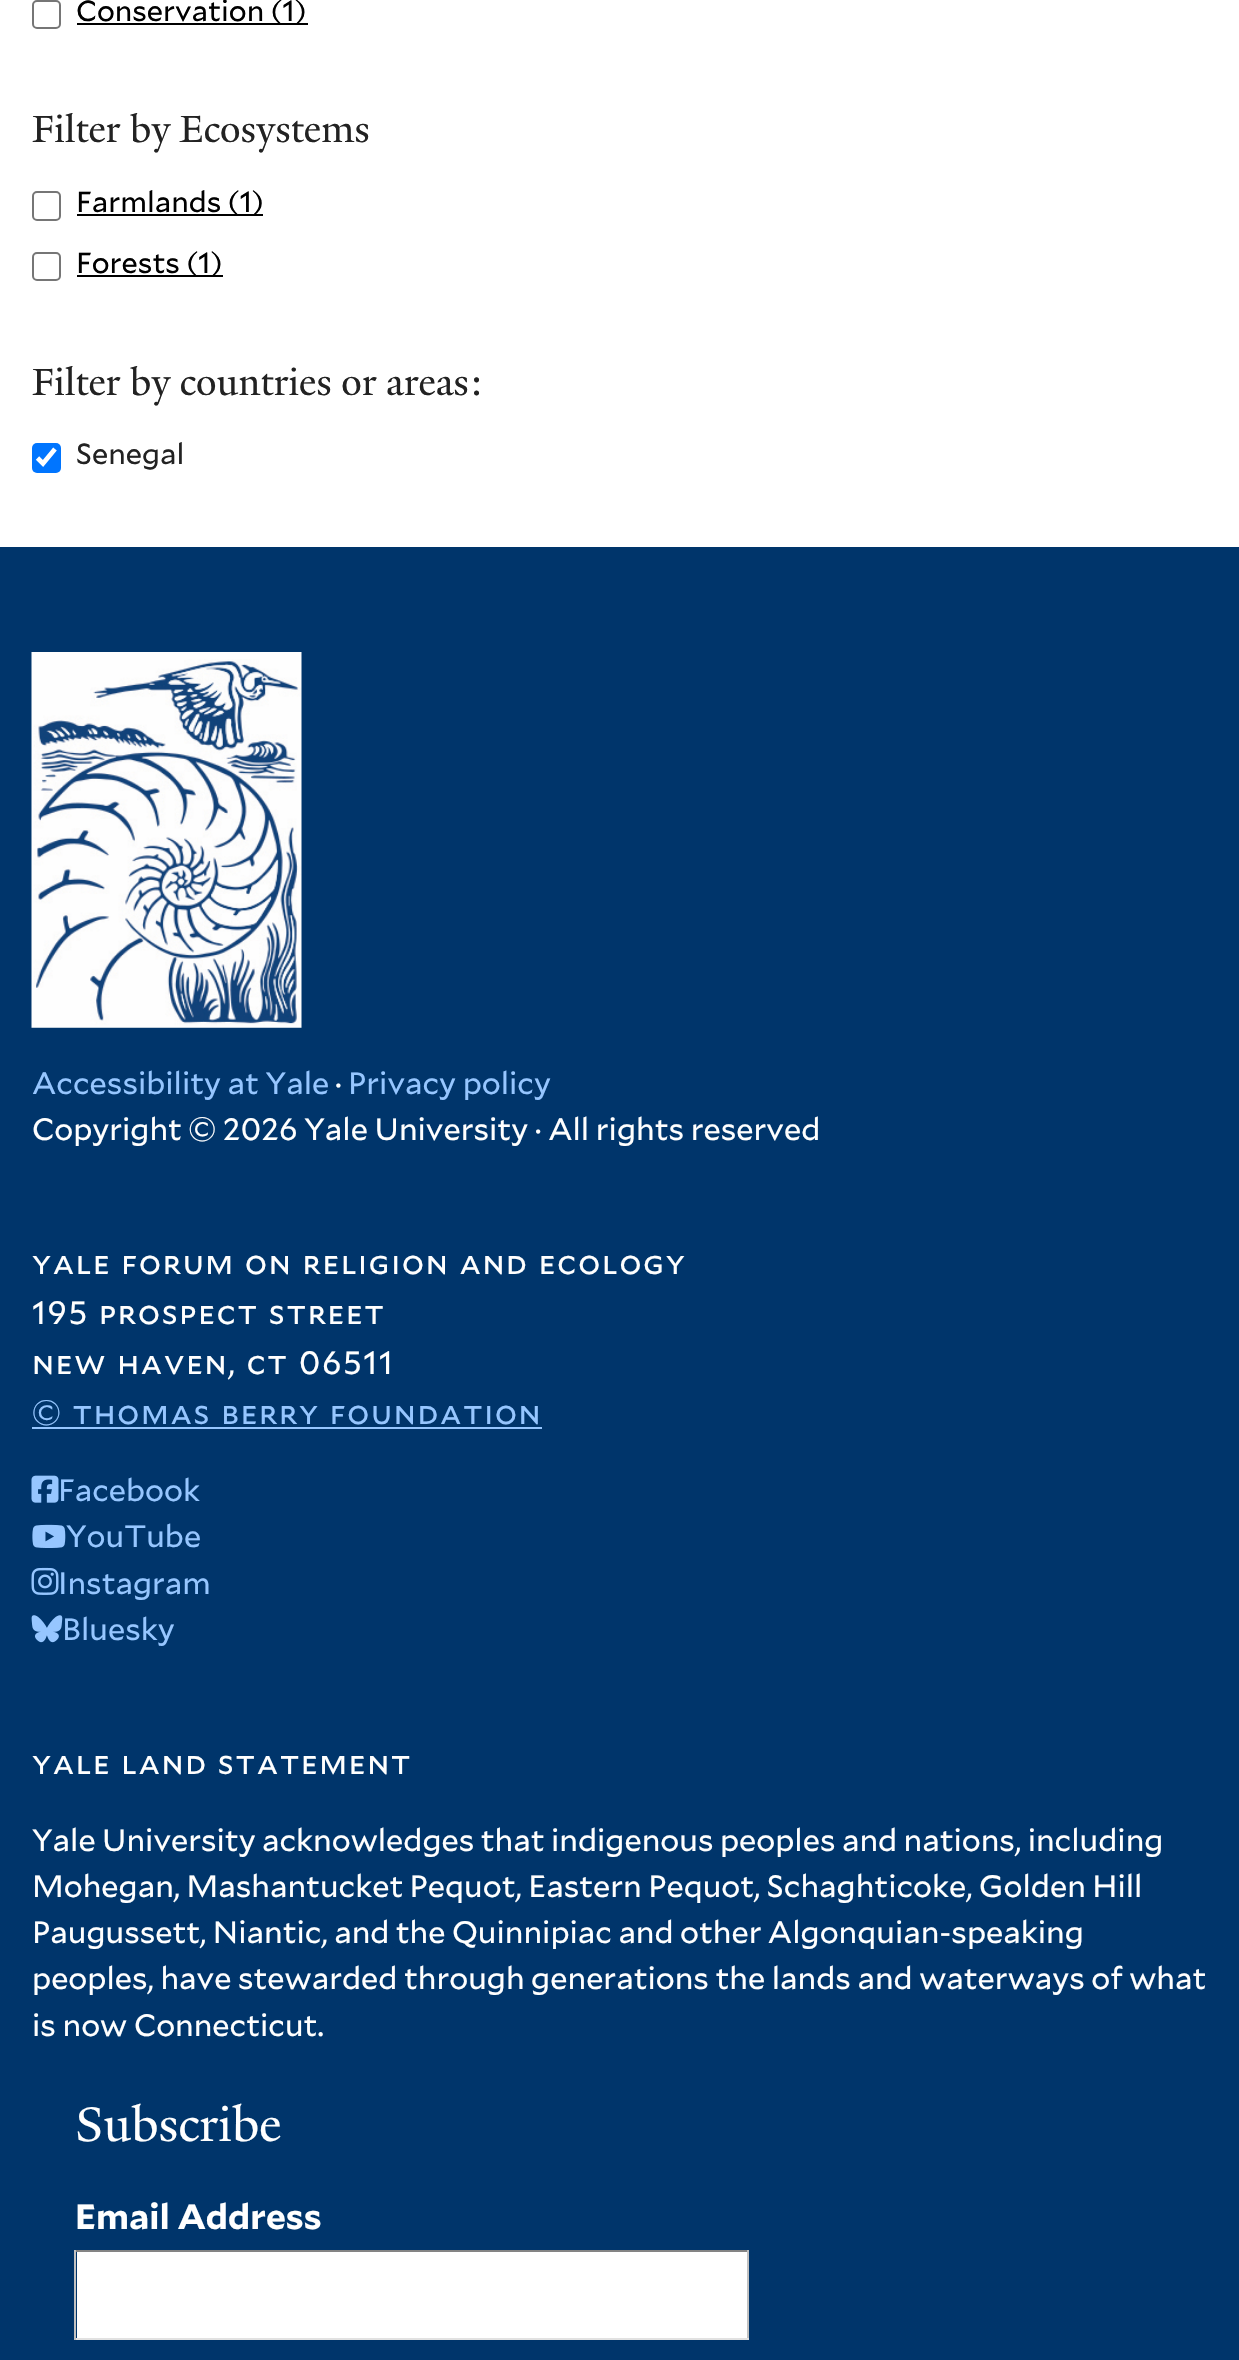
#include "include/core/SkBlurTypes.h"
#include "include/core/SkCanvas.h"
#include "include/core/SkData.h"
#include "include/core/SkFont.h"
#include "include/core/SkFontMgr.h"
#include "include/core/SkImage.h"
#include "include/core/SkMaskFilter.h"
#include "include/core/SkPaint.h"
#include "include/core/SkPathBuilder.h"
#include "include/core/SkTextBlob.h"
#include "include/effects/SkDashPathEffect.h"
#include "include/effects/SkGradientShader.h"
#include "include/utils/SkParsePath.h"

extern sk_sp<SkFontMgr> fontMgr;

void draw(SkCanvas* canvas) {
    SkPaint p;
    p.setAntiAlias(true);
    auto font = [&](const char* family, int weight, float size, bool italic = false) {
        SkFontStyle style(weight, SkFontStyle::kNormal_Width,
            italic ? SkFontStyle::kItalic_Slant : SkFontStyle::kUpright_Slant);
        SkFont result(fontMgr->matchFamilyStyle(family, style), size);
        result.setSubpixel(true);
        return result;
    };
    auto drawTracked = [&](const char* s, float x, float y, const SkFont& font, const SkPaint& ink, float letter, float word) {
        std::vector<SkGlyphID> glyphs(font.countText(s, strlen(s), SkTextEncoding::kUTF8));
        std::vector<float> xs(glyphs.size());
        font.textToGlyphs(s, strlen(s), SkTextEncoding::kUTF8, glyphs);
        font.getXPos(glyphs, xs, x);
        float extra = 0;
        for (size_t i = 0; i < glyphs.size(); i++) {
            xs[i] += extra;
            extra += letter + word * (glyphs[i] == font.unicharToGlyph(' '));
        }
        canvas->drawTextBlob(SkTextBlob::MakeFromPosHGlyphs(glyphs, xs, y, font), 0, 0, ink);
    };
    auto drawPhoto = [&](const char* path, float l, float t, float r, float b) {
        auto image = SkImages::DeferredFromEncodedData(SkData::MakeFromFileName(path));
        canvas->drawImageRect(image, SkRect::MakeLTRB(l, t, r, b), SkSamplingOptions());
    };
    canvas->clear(0xFFFFFFFF);
    p.setStyle(SkPaint::kStroke_Style);
    p.setStrokeWidth(2);
    p.setColor(0xFF767676);
    canvas->drawRoundRect(SkRect::MakeLTRB(33, 1, 60, 28), 4, 4, p);
    p.setStyle(SkPaint::kFill_Style);
    p.setColor(0xFF000000);
    canvas->drawRect(SkRect::MakeLTRB(77, 23, 308, 25), p);
    auto font1 = font("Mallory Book", 400, 29);
    canvas->drawString("Conservation (1)", 76, 21, font1, p);
    auto font2 = font("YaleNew", 400, 41.1f);
    p.setColor(0xFF222222);
    canvas->drawString("Filter by Ecosystems", 32, 142, font2, p);
    p.setStyle(SkPaint::kStroke_Style);
    p.setColor(0xFF767676);
    canvas->drawRoundRect(SkRect::MakeLTRB(33, 192, 60, 220), 4, 4, p);
    p.setStyle(SkPaint::kFill_Style);
    p.setColor(0xFF000000);
    canvas->drawRect(SkRect::MakeLTRB(77, 214, 263, 216), p);
    canvas->drawString("Farmlands (1)", 76, 212, font1, p);
    p.setStyle(SkPaint::kStroke_Style);
    p.setColor(0xFF767676);
    canvas->drawRoundRect(SkRect::MakeLTRB(33, 253, 60, 280), 4, 4, p);
    p.setStyle(SkPaint::kFill_Style);
    p.setColor(0xFF000000);
    canvas->drawRect(SkRect::MakeLTRB(77, 275, 223, 277), p);
    canvas->drawString("Forests (1)", 76, 273, font1, p);
    p.setColor(0xFF222222);
    canvas->drawString("Filter by countries or areas:", 32, 395, font2, p);
    p.setColor(0xFF0075FF);
    canvas->drawRoundRect(SkRect::MakeLTRB(32, 443, 61, 473), 5, 5, p);
    p.setStyle(SkPaint::kStroke_Style);
    p.setStrokeWidth(4.7f);
    p.setColor(0xFFFFFFFF);
    canvas->drawPath(SkPathBuilder().moveTo(37.5f, 458).lineTo(43, 463.5f).lineTo(55, 449).detach(), p);
    p.setStyle(SkPaint::kFill_Style);
    p.setColor(0xFF222222);
    canvas->drawString("Senegal", 76, 464, font1, p);
    p.setColor(0xFF00356B);
    canvas->drawRect(SkRect::MakeLTRB(0, 547, 1239, 2360), p);
    drawPhoto("media/1.png", 31, 652, 302, 1028);
    auto font3 = font("Mallory Book", 400, 30.85f);
    p.setColor(0xFF96C6FF);
    canvas->drawString("Accessibility at Yale", 32, 1094, font3, p);
    p.setColor(0xFFFFFFFF);
    canvas->drawString("·", 335, 1094, font3, p);
    p.setColor(0xFF96C6FF);
    canvas->drawString("Privacy policy", 348, 1094, font3, p);
    p.setColor(0xFFFFFFFF);
    canvas->drawString("Copyright © 2026 Yale University · All rights reserved", 32, 1140, font3, p);
    auto font4 = font("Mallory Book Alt", 400, 32.3f);
    {
        const struct { const char* s; float x, y; } items[] = {
            {"yale forum on religion and ecology", 32, 1274},
            {"195 prospect street", 32, 1324},
            {"new haven, ct 06511", 32, 1374},
        };
        for (auto [s, x, y] : items) {
            drawTracked(s, x, y, font4, p, 1.6f, 1.5f);
        }
    }
    p.setColor(0xFF96C6FF);
    drawTracked("© thomas berry foundation", 32, 1424, font4, p, 1.6f, 1.5f);
    canvas->drawRect(SkRect::MakeLTRB(32, 1427, 542, 1429), p);
    drawPhoto("media/2.png", 31, 1475, 59, 1503);
    canvas->drawString("Facebook", 58, 1501, font3, p);
    drawPhoto("media/3.png", 32, 1524, 66, 1548);
    canvas->drawString("YouTube", 66, 1547, font3, p);
    drawPhoto("media/4.png", 31, 1567, 59, 1595);
    canvas->drawString("Instagram", 58, 1594, font3, p);
    drawPhoto("media/5.png", 31, 1615, 63, 1643);
    canvas->drawString("Bluesky", 62, 1640, font3, p);
    p.setColor(0xFFFFFFFF);
    drawTracked("yale land statement", 32, 1774, font4, p, 1.6f, 1.5f);
    {
        const struct { const char* s; float x, y; } items[] = {
            {"Yale University acknowledges that indigenous peoples and nations, including", 32, 1851},
            {"Mohegan, Mashantucket Pequot, Eastern Pequot, Schaghticoke, Golden Hill", 32, 1897},
            {"Paugussett, Niantic, and the Quinnipiac and other Algonquian-speaking", 32, 1943},
        };
        for (auto [s, x, y] : items) {
            drawTracked(s, x, y, font3, p, 0, -0.25f);
        }
    }
    drawTracked("peoples, have stewarded through generations the lands and waterways of what", 32, 1989, font3, p, 0, -0.1f);
    canvas->drawString("is now Connecticut.", 32, 2036, font3, p);
    auto font5 = font("YaleNew", 400, 52.5f);
    canvas->drawString("Subscribe", 75, 2141, font5, p);
    auto font6 = font("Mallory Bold", 700, 35);
    canvas->drawString("Email Address", 75, 2229, font6, p);
    {
        const struct { float l, t, r, b; SkColor color; } items[] = {
            {77, 2252, 747, 2338, 0xFFFFFFFF},
            {74, 2250, 749, 2252, 0xFF848484},
            {747, 2250, 749, 2340, 0xFFC1C1C1},
            {74, 2338, 749, 2340, 0xFFE1E1E1},
            {74, 2250, 76, 2340, 0xFFC1C1C1},
        };
        for (auto [l, t, r, b, color] : items) {
            p.setColor(color);
            canvas->drawRect(SkRect::MakeLTRB(l, t, r, b), p);
        }
    }
}
